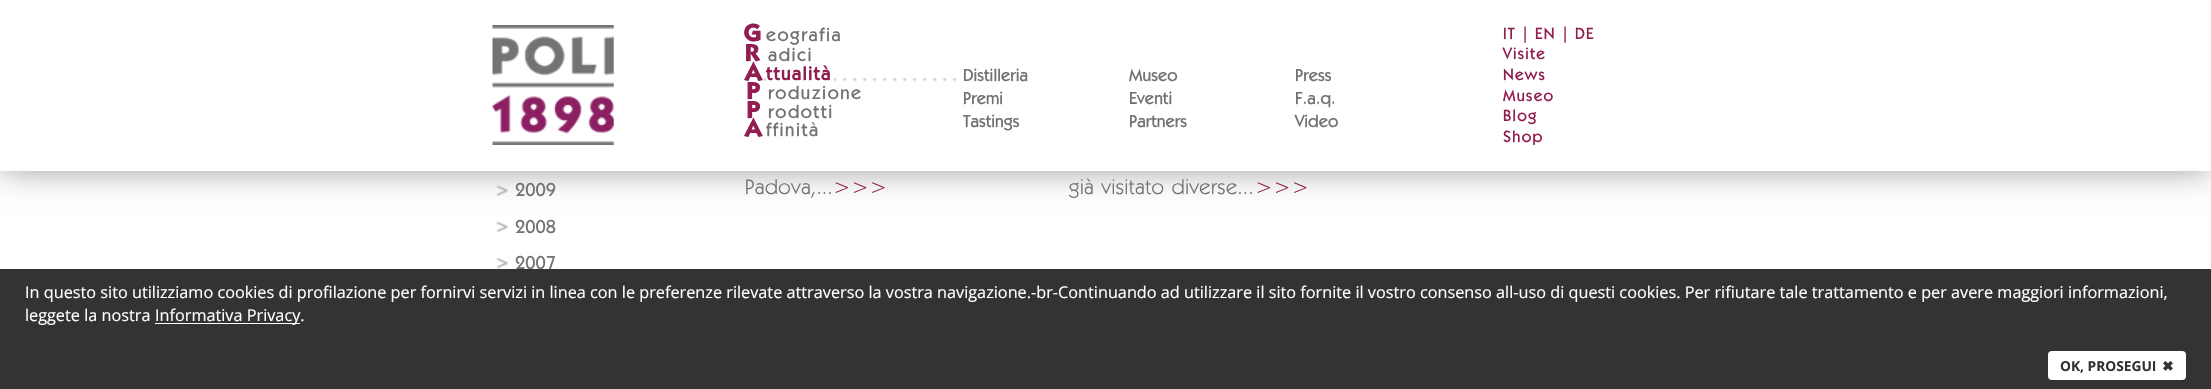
#include "include/core/SkBlurTypes.h"
#include "include/core/SkCanvas.h"
#include "include/core/SkData.h"
#include "include/core/SkFont.h"
#include "include/core/SkFontMgr.h"
#include "include/core/SkImage.h"
#include "include/core/SkMaskFilter.h"
#include "include/core/SkPaint.h"
#include "include/core/SkPathBuilder.h"
#include "include/core/SkTextBlob.h"
#include "include/effects/SkDashPathEffect.h"
#include "include/effects/SkGradientShader.h"
#include "include/utils/SkParsePath.h"

extern sk_sp<SkFontMgr> fontMgr;

void draw(SkCanvas* canvas) {
    SkPaint p;
    p.setAntiAlias(true);
    auto font = [&](const char* family, int weight, float size, bool italic = false) {
        SkFontStyle style(weight, SkFontStyle::kNormal_Width,
            italic ? SkFontStyle::kItalic_Slant : SkFontStyle::kUpright_Slant);
        SkFont result(fontMgr->matchFamilyStyle(family, style), size);
        result.setSubpixel(true);
        return result;
    };
    auto drawTracked = [&](const char* s, float x, float y, const SkFont& font, const SkPaint& ink, float letter, float word) {
        std::vector<SkGlyphID> glyphs(font.countText(s, strlen(s), SkTextEncoding::kUTF8));
        std::vector<float> xs(glyphs.size());
        font.textToGlyphs(s, strlen(s), SkTextEncoding::kUTF8, glyphs);
        font.getXPos(glyphs, xs, x);
        float extra = 0;
        for (size_t i = 0; i < glyphs.size(); i++) {
            xs[i] += extra;
            extra += letter + word * (glyphs[i] == font.unicharToGlyph(' '));
        }
        canvas->drawTextBlob(SkTextBlob::MakeFromPosHGlyphs(glyphs, xs, y, font), 0, 0, ink);
    };
    auto drawPhoto = [&](const char* path, float l, float t, float r, float b) {
        auto image = SkImages::DeferredFromEncodedData(SkData::MakeFromFileName(path));
        canvas->drawImageRect(image, SkRect::MakeLTRB(l, t, r, b), SkSamplingOptions());
    };
    canvas->clear(0xFFFFFFFF);
    drawPhoto("media/3.png", 496, 185, 508, 197);
    p.setColor(0xFF999999);
    p.setMaskFilter(SkMaskFilter::MakeBlur(kNormal_SkBlurStyle, 15.5f));
    canvas->drawRect(SkRect::MakeLTRB(1, 1, 2210, 170), p);
    p.setMaskFilter(nullptr);
    p.setColor(0xFFFFFFFF);
    canvas->drawRect(SkRect::MakeLTRB(0, 0, 2211, 171), p);
    drawPhoto("media/1.png", 492, 25, 614, 145);
    auto font1 = font("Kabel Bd", 400, 21.25f);
    p.setColor(0xFF911E50);
    drawTracked("G", 743, 41, font1, p, 1.5f, 0);
    auto font2 = font("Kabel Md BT", 500, 18.75f);
    p.setColor(0xFF727272);
    drawTracked("eografia", 766, 41, font2, p, 1.5f, 0);
    p.setColor(0xFF911E50);
    drawTracked("R", 745, 61, font1, p, 1.5f, 0);
    p.setColor(0xFF727272);
    drawTracked("adici", 768, 61, font2, p, 1.5f, 0);
    drawPhoto("media/2.png", 742, 77, 957, 82);
    p.setColor(0xFFFFFFFF);
    canvas->drawRect(SkRect::MakeLTRB(743, 77, 764, 82), p);
    canvas->drawRect(SkRect::MakeLTRB(766, 77, 834, 82), p);
    p.setColor(0xFF911E50);
    drawTracked("A", 743, 80, font1, p, 1.5f, 0);
    auto font3 = font("Kabel Md BT", 700, 18.75f);
    drawTracked("ttualità", 766, 80, font3, p, 1.5f, 0);
    auto font4 = font("Kabel Md BT", 500, 17.5f);
    p.setColor(0xFF727272);
    {
        const struct { const char* s; float x, y; } items[] = {
            {"Distilleria", 963, 81},
            {"Premi", 963, 104},
            {"Tastings", 963, 127},
            {"Museo", 1129, 81},
            {"Eventi", 1129, 104},
            {"Partners", 1129, 127},
            {"Press", 1295, 81},
            {"F.a.q.", 1295, 104},
            {"Video", 1295, 127},
        };
        for (auto [s, x, y] : items) {
            canvas->drawString(s, x, y, font4, p);
        }
    }
    p.setColor(0xFF911E50);
    drawTracked("P", 746, 99, font1, p, 1.5f, 0);
    p.setColor(0xFF727272);
    drawTracked("roduzione", 768, 99, font2, p, 1.5f, 0);
    p.setColor(0xFF911E50);
    drawTracked("P", 746, 118, font1, p, 1.5f, 0);
    p.setColor(0xFF727272);
    drawTracked("rodotti", 768, 118, font2, p, 1.5f, 0);
    p.setColor(0xFF911E50);
    drawTracked("A", 743, 136, font1, p, 1.5f, 0);
    p.setColor(0xFF727272);
    drawTracked("ffinità", 766, 136, font2, p, 1.5f, 0);
    auto font5 = font("Kabel Md BT", 500, 16.25f);
    p.setColor(0xFF911E50);
    {
        const struct { const char* s; float x, y; } items[] = {
            {"IT", 1503, 39},
            {"|", 1521, 39},
            {"EN", 1535, 39},
            {"|", 1561, 39},
            {"DE", 1575, 39},
            {"Visite", 1503, 59},
            {"News", 1503, 80},
            {"Museo", 1503, 101},
            {"Blog", 1503, 121},
            {"Shop", 1503, 142},
        };
        for (auto [s, x, y] : items) {
            drawTracked(s, x, y, font5, p, 1.25f, 0);
        }
    }
    p.setColor(0xFF727272);
    canvas->drawString("2009", 515, 196, font2, p);
    drawPhoto("media/4.png", 496, 221, 508, 233);
    canvas->drawString("2008", 515, 233, font2, p);
    drawPhoto("media/5.png", 496, 257, 508, 269);
    canvas->drawString("2007", 515, 269, font2, p);
    auto font6 = font("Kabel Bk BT", 400, 21.25f);
    drawTracked("Padova,...", 745, 194, font6, p, 0.6f, 0);
    p.setColor(0xFF911E50);
    drawTracked(">>>", 833, 194, font6, p, 0.6f, 0);
    p.setColor(0xFF727272);
    drawTracked("già visitato diverse...", 1069, 194, font6, p, 0.6f, 1);
    p.setColor(0xFF911E50);
    drawTracked(">>>", 1255, 194, font6, p, 0.6f, 0);
    p.setColor(0xFF333333);
    canvas->drawRect(SkRect::MakeLTRB(0, 269, 2211, 389), p);
    auto font7 = font("Open Sans", 400, 16.25f);
    p.setColor(0xFFFFFFFF);
    canvas->drawString("In questo sito utilizziamo cookies di profilazione per fornirvi servizi in linea con le preferenze rilevate attraverso la vostra navigazione.-br-Continuando ad utilizzare il sito fornite il vostro consenso all-uso di questi cookies. Per rifiutare tale trattamento e per avere maggiori informazioni,", 25, 298, font7, p);
    canvas->drawString("leggete la nostra", 25, 321, font7, p);
    canvas->drawRect(SkRect::MakeLTRB(155, 323, 300, 324), p);
    canvas->drawString("Informativa Privacy.", 155, 321, font7, p);
    canvas->drawRoundRect(SkRect::MakeLTRB(2048, 351, 2186, 380), 4, 4, p);
    auto font8 = font("Open Sans", 700, 13.75f);
    p.setColor(0xFF333333);
    canvas->drawString("OK, PROSEGUI", 2060, 371, font8, p);
    auto font9 = font("DejaVu Sans", 700, 13.75f);
    canvas->drawString("✖", 2162, 371, font9, p);
}
